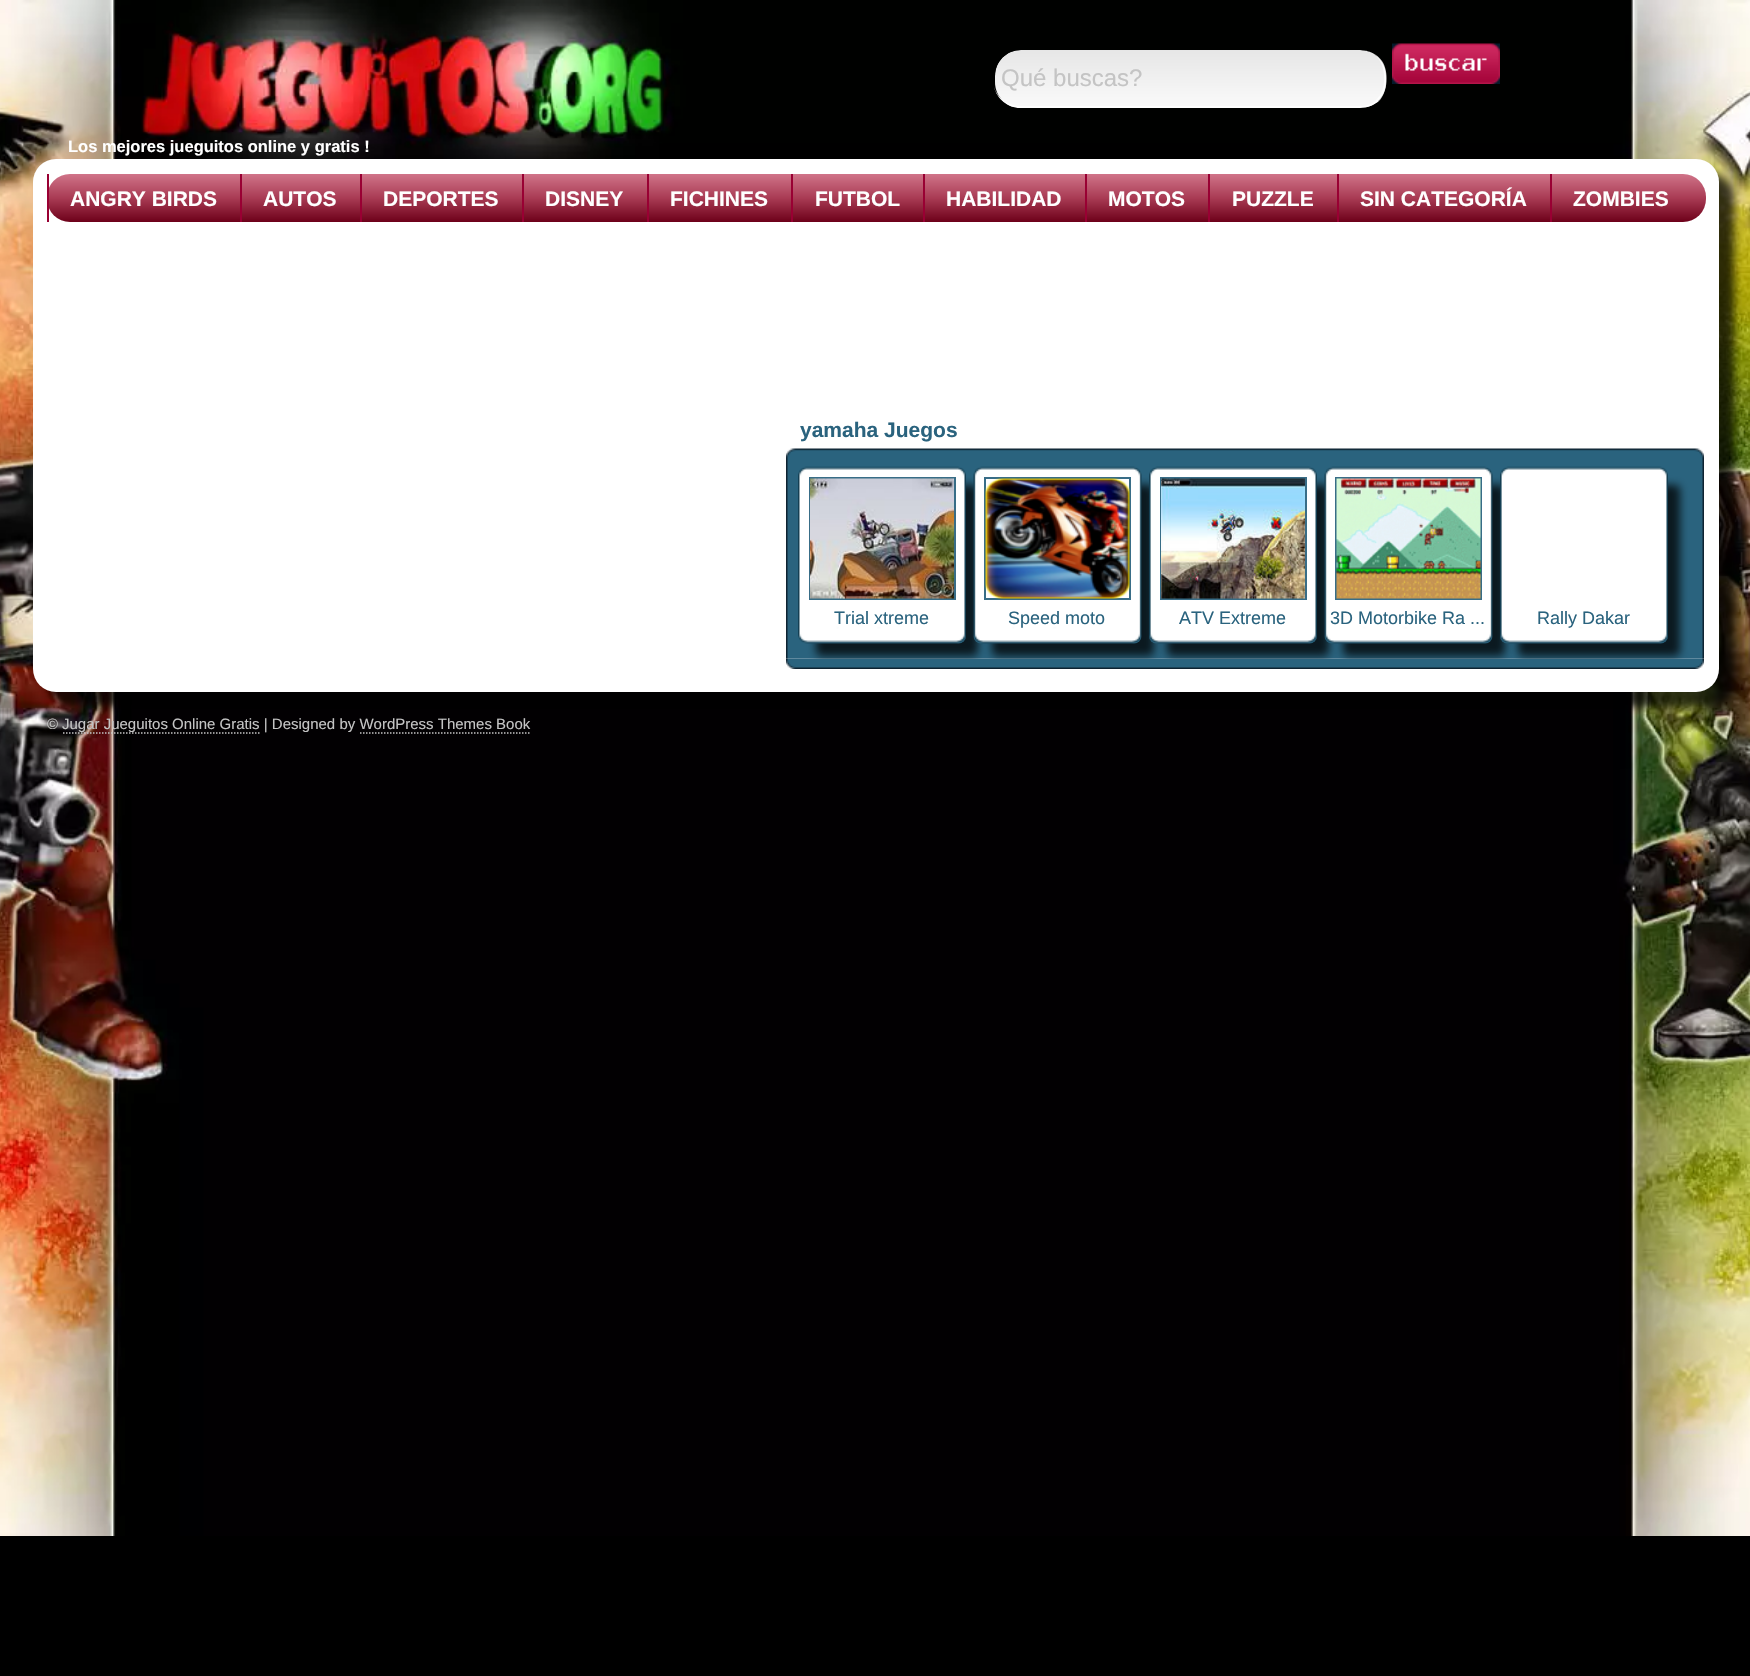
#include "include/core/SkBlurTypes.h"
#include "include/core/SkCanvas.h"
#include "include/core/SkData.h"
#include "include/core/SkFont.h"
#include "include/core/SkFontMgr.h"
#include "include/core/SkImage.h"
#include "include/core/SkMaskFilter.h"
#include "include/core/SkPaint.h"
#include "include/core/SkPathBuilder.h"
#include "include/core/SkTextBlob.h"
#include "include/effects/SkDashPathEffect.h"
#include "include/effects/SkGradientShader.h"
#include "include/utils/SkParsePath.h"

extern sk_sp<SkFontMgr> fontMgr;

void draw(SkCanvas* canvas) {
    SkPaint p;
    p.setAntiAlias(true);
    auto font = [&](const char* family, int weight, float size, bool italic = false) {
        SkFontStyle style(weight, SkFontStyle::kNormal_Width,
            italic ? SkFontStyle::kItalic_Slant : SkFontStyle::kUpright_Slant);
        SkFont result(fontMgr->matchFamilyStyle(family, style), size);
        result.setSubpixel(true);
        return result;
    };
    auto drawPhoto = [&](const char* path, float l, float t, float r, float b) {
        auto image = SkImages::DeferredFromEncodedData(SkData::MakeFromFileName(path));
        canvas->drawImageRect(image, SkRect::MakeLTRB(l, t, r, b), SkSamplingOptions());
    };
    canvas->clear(0xFF000000);
    drawPhoto("media/1.png", 0, 0, 1750, 1536);
    canvas->save();
    canvas->clipPath(SkPathBuilder().moveTo(1021, 50).lineTo(1360, 50).cubicTo(1374.5f, 50, 1386, 61.5f, 1386, 76).lineTo(1386, 82).cubicTo(1386, 96.5f, 1374.5f, 108, 1360, 108).lineTo(1021, 108).cubicTo(1006.5f, 108, 995, 96.5f, 995, 82).lineTo(995, 76).cubicTo(995, 61.5f, 1006.5f, 50, 1021, 50).close().detach(), true);
    {
        const SkColor colors[] = {0xFFFAFAFA, 0xFFE6E6E6};
        const float stops[] = {0, 1};
        const SkPoint ends[] = {{995, 107}, {995, 50}};
        p.setShader(SkGradientShader::MakeLinear(ends, colors, stops, 2, SkTileMode::kClamp));
        p.setAlpha(255);
    }
    canvas->drawPath(SkPathBuilder().moveTo(1021, 50).lineTo(1360, 50).cubicTo(1374.5f, 50, 1386, 61.5f, 1386, 76).lineTo(1386, 107).lineTo(995, 107).lineTo(995, 76).cubicTo(995, 61.5f, 1006.5f, 50, 1021, 50).close().detach(), p);
    canvas->restore();
    p.setShader(nullptr);
    p.setColor(0xCCFFFFFF);
    canvas->drawPath(SkPathBuilder().moveTo(1377, 99).cubicTo(1386, 91, 1386, 71, 1380, 61).cubicTo(1376, 54, 1368, 50, 1360, 50).cubicTo(1369, 50, 1377, 54, 1382, 61).cubicTo(1389, 71, 1388, 92, 1379, 101).close().detach(), p);
    p.setColor(0xFFFFFFFF);
    canvas->drawPath(SkPathBuilder().moveTo(994, 87).cubicTo(997, 98, 1008, 106, 1020, 106).lineTo(1360, 106).cubicTo(1367, 106, 1373, 104, 1377, 99).lineTo(1379, 101).cubicTo(1374, 105, 1368, 108, 1360, 108).lineTo(1020, 108).cubicTo(1008, 108, 997, 99, 994, 87).close().detach(), p);
    auto font1 = font("Liberation Sans", 400, 24);
    p.setColor(0xFFC4C4C4);
    canvas->drawString("Qué buscas?", 1001, 86, font1, p);
    drawPhoto("media/2.png", 1392, 43, 1500, 84);
    auto font2 = font("Liberation Sans", 700, 16.5f);
    p.setColor(0xFFFFFFFF);
    canvas->drawString("Los mejores jueguitos online y gratis !", 68, 152, font2, p);
    p.setColor(0xBF000000);
    p.setMaskFilter(SkMaskFilter::MakeBlur(kNormal_SkBlurStyle, 4));
    canvas->drawRoundRect(SkRect::MakeLTRB(48, 174, 1734, 707), 23, 23, p);
    p.setMaskFilter(nullptr);
    p.setColor(0xFFFFFFFF);
    canvas->drawRoundRect(SkRect::MakeLTRB(33, 159, 1719, 692), 23, 23, p);
    {
        const SkColor colors[] = {0xFFD07489, 0xFFA83A53, 0xFF6D0019};
        const float stops[] = {0, 0.51f, 1};
        const SkPoint ends[] = {{876, 174}, {876, 222}};
        p.setShader(SkGradientShader::MakeLinear(ends, colors, stops, 3, SkTileMode::kClamp));
        p.setAlpha(255);
    }
    canvas->drawRoundRect(SkRect::MakeLTRB(47, 174, 1706, 222), 23, 23, p);
    p.setShader(nullptr);
    p.setColor(0xFF990033);
    canvas->drawRect(SkRect::MakeLTRB(47, 174, 49, 222), p);
    auto font3 = font("Liberation Sans", 700, 21);
    p.setColor(0xFFFFFFFF);
    canvas->drawString("ANGRY BIRDS", 70, 206, font3, p);
    p.setColor(0xFF990033);
    canvas->drawRect(SkRect::MakeLTRB(240, 174, 242, 222), p);
    p.setColor(0xFFFFFFFF);
    canvas->drawString("AUTOS", 263, 206, font3, p);
    p.setColor(0xFF990033);
    canvas->drawRect(SkRect::MakeLTRB(360, 174, 362, 222), p);
    p.setColor(0xFFFFFFFF);
    canvas->drawString("DEPORTES", 383, 206, font3, p);
    p.setColor(0xFF990033);
    canvas->drawRect(SkRect::MakeLTRB(522, 174, 524, 222), p);
    p.setColor(0xFFFFFFFF);
    canvas->drawString("DISNEY", 545, 206, font3, p);
    p.setColor(0xFF990033);
    canvas->drawRect(SkRect::MakeLTRB(647, 174, 649, 222), p);
    p.setColor(0xFFFFFFFF);
    canvas->drawString("FICHINES", 670, 206, font3, p);
    p.setColor(0xFF990033);
    canvas->drawRect(SkRect::MakeLTRB(791, 174, 793, 222), p);
    p.setColor(0xFFFFFFFF);
    canvas->drawString("FUTBOL", 815, 206, font3, p);
    p.setColor(0xFF990033);
    canvas->drawRect(SkRect::MakeLTRB(923, 174, 925, 222), p);
    p.setColor(0xFFFFFFFF);
    canvas->drawString("HABILIDAD", 946, 206, font3, p);
    p.setColor(0xFF990033);
    canvas->drawRect(SkRect::MakeLTRB(1085, 174, 1087, 222), p);
    p.setColor(0xFFFFFFFF);
    canvas->drawString("MOTOS", 1108, 206, font3, p);
    p.setColor(0xFF990033);
    canvas->drawRect(SkRect::MakeLTRB(1208, 174, 1210, 222), p);
    p.setColor(0xFFFFFFFF);
    canvas->drawString("PUZZLE", 1232, 206, font3, p);
    p.setColor(0xFF990033);
    canvas->drawRect(SkRect::MakeLTRB(1337, 174, 1339, 222), p);
    p.setColor(0xFFFFFFFF);
    canvas->drawString("SIN CATEGORÍA", 1360, 206, font3, p);
    p.setColor(0xFF990033);
    canvas->drawRect(SkRect::MakeLTRB(1550, 174, 1552, 222), p);
    p.setColor(0xFFFFFFFF);
    canvas->drawString("ZOMBIES", 1573, 206, font3, p);
    drawPhoto("media/3.png", 786, 448, 1704, 459);
    p.setColor(0xFF2A637E);
    canvas->drawString("yamaha Juegos", 800, 437, font3, p);
    drawPhoto("media/14.png", 786, 658, 1704, 669);
    drawPhoto("media/4.png", 786, 459, 1704, 659);
    canvas->save();
    canvas->clipRect(SkRect::MakeLTRB(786, 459, 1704, 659));
    p.setColor(0xBF000000);
    p.setMaskFilter(SkMaskFilter::MakeBlur(kNormal_SkBlurStyle, 4));
    canvas->drawRoundRect(SkRect::MakeLTRB(816, 485, 978, 656), 5, 5, p);
    p.setMaskFilter(nullptr);
    canvas->restore();
    drawPhoto("media/5.png", 798, 466, 966, 644);
    p.setStyle(SkPaint::kStroke_Style);
    p.setStrokeWidth(2);
    p.setColor(0xFF386D87);
    canvas->drawRect(SkRect::MakeLTRB(810, 478, 955, 599), p);
    drawPhoto("media/6.png", 810, 478, 954, 599);
    auto font4 = font("Liberation Sans", 400, 18);
    p.setStyle(SkPaint::kFill_Style);
    p.setColor(0xFF2A637E);
    canvas->drawString("Trial xtreme", 834, 624, font4, p);
    canvas->save();
    canvas->clipRect(SkRect::MakeLTRB(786, 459, 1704, 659));
    p.setColor(0xBF000000);
    p.setMaskFilter(SkMaskFilter::MakeBlur(kNormal_SkBlurStyle, 4));
    canvas->drawRoundRect(SkRect::MakeLTRB(992, 485, 1154, 656), 5, 5, p);
    p.setMaskFilter(nullptr);
    canvas->restore();
    drawPhoto("media/7.png", 973, 466, 1142, 644);
    p.setStyle(SkPaint::kStroke_Style);
    p.setColor(0xFF386D87);
    canvas->drawRect(SkRect::MakeLTRB(985, 478, 1130, 599), p);
    drawPhoto("media/8.png", 985, 478, 1130, 599);
    p.setStyle(SkPaint::kFill_Style);
    p.setColor(0xFF2A637E);
    canvas->drawString("Speed moto", 1008, 624, font4, p);
    canvas->save();
    canvas->clipRect(SkRect::MakeLTRB(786, 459, 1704, 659));
    p.setColor(0xBF000000);
    p.setMaskFilter(SkMaskFilter::MakeBlur(kNormal_SkBlurStyle, 4));
    canvas->drawRoundRect(SkRect::MakeLTRB(1167, 485, 1329, 656), 5, 5, p);
    p.setMaskFilter(nullptr);
    canvas->restore();
    drawPhoto("media/9.png", 1149, 466, 1317, 644);
    p.setStyle(SkPaint::kStroke_Style);
    p.setColor(0xFF386D87);
    canvas->drawRect(SkRect::MakeLTRB(1161, 478, 1306, 599), p);
    drawPhoto("media/10.png", 1161, 478, 1305, 599);
    p.setStyle(SkPaint::kFill_Style);
    p.setColor(0xFF2A637E);
    canvas->drawString("ATV Extreme", 1179, 624, font4, p);
    canvas->save();
    canvas->clipRect(SkRect::MakeLTRB(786, 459, 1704, 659));
    p.setColor(0xBF000000);
    p.setMaskFilter(SkMaskFilter::MakeBlur(kNormal_SkBlurStyle, 4));
    canvas->drawRoundRect(SkRect::MakeLTRB(1343, 485, 1505, 656), 5, 5, p);
    p.setMaskFilter(nullptr);
    canvas->restore();
    drawPhoto("media/11.png", 1324, 466, 1493, 644);
    p.setStyle(SkPaint::kStroke_Style);
    p.setColor(0xFF386D87);
    canvas->drawRect(SkRect::MakeLTRB(1336, 478, 1481, 599), p);
    drawPhoto("media/12.png", 1336, 478, 1481, 599);
    p.setStyle(SkPaint::kFill_Style);
    p.setColor(0xFF2A637E);
    canvas->drawString("3D Motorbike Ra ...", 1330, 624, font4, p);
    canvas->save();
    canvas->clipRect(SkRect::MakeLTRB(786, 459, 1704, 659));
    p.setColor(0xBF000000);
    p.setMaskFilter(SkMaskFilter::MakeBlur(kNormal_SkBlurStyle, 4));
    canvas->drawRoundRect(SkRect::MakeLTRB(1518, 485, 1680, 656), 5, 5, p);
    p.setMaskFilter(nullptr);
    canvas->restore();
    drawPhoto("media/13.png", 1500, 466, 1668, 644);
    p.setColor(0xFF2A637E);
    canvas->drawString("Rally Dakar", 1537, 624, font4, p);
    auto font5 = font("Liberation Sans", 400, 15);
    p.setColor(0xFFC4C4C4);
    canvas->drawString("©", 47, 729, font5, p);
    p.setStyle(SkPaint::kStroke_Style);
    p.setStrokeWidth(1.5f);
    p.setPathEffect(SkDashPathEffect::Make({{1.5f, 1.5f}}, 0));
    canvas->drawPath(SkPathBuilder().moveTo(63, 733).lineTo(259.5f, 733).detach(), p);
    p.setPathEffect(nullptr);
    p.setStyle(SkPaint::kFill_Style);
    canvas->drawString("Jugar Jueguitos Online Gratis | Designed by WordPress Themes Book", 62, 729, font5, p);
    p.setStyle(SkPaint::kStroke_Style);
    p.setPathEffect(SkDashPathEffect::Make({{1.5f, 1.5f}}, 0));
    canvas->drawPath(SkPathBuilder().moveTo(360, 733).lineTo(531, 733).detach(), p);
    p.setPathEffect(nullptr);
}
